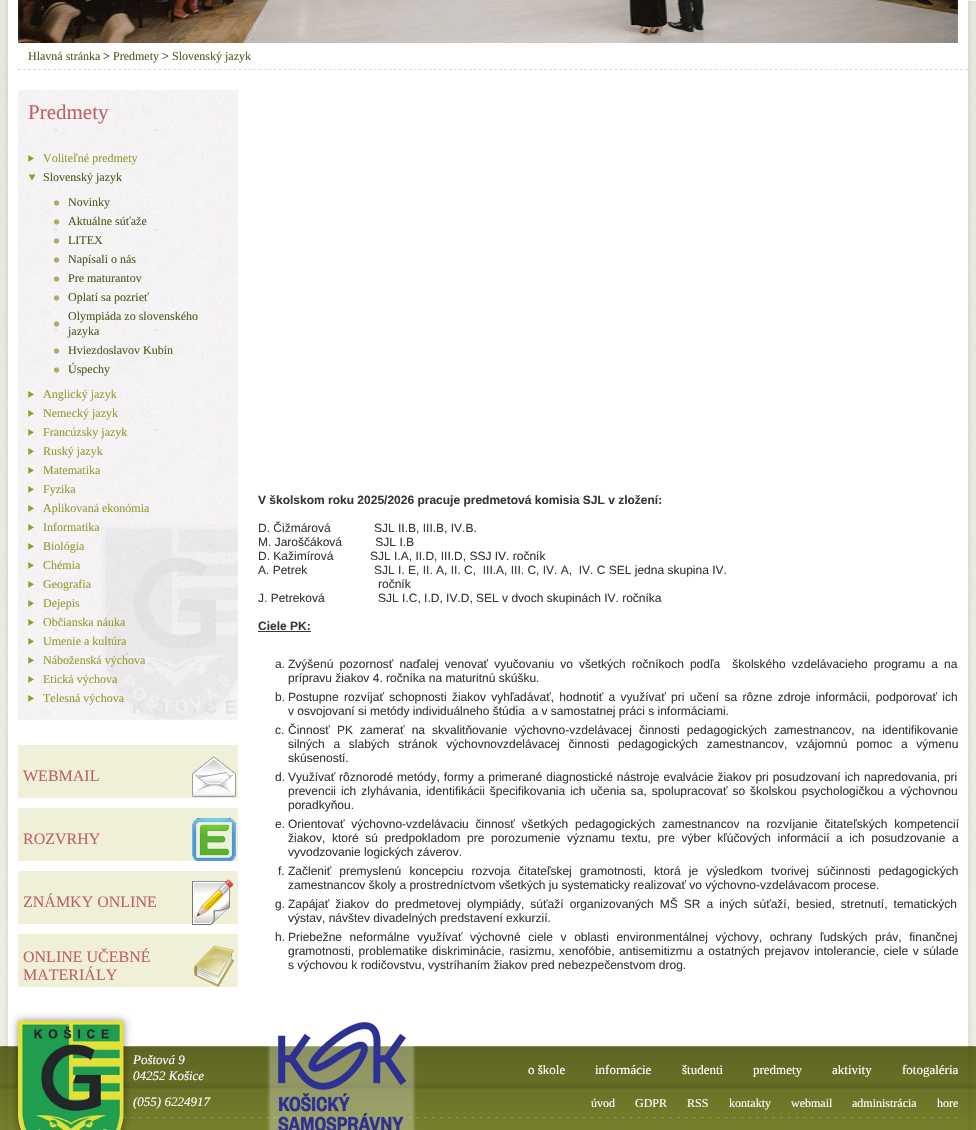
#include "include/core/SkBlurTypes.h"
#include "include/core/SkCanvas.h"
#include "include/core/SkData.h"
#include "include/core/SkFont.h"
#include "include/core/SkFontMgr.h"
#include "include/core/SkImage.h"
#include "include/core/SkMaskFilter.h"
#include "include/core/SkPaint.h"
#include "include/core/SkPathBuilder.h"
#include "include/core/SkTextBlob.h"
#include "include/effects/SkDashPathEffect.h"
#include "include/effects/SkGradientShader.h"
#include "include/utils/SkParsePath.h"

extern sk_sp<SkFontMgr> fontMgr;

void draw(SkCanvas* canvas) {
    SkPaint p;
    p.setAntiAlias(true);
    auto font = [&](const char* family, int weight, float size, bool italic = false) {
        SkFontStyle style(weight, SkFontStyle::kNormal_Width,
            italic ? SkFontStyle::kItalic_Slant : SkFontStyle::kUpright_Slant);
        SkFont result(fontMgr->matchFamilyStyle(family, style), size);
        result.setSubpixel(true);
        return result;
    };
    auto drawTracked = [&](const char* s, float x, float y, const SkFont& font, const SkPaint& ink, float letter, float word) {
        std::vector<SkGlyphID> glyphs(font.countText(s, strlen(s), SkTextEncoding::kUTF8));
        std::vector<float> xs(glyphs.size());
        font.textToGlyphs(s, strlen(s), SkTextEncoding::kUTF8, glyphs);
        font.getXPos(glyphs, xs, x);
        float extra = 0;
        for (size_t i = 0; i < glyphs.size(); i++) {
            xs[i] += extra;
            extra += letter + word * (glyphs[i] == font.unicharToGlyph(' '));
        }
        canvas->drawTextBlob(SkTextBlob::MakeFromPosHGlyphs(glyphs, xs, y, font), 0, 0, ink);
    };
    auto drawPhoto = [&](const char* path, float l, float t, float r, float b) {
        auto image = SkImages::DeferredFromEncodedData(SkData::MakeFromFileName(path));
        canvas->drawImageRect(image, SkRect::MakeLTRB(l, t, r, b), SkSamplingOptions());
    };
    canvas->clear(0xFFFFFFFF);
    drawPhoto("media/1.png", 0, 0, 976, 1047);
    drawPhoto("media/2.png", 0, 0, 8, 714);
    drawPhoto("media/3.png", 5, 0, 971, 1012);
    drawPhoto("media/4.png", 18, 0, 958, 43);
    p.setStyle(SkPaint::kStroke_Style);
    p.setStrokeWidth(1);
    p.setColor(0xFFDADADA);
    p.setPathEffect(SkDashPathEffect::Make({{3, 2.01f}}, 0));
    canvas->drawPath(SkPathBuilder().moveTo(18, 69.5f).lineTo(968, 69.5f).detach(), p);
    p.setPathEffect(nullptr);
    auto font1 = font("Liberation Serif", 400, 12);
    p.setStyle(SkPaint::kFill_Style);
    p.setColor(0xFF495C23);
    canvas->drawString("Hlavná stránka", 28, 60, font1, p);
    p.setColor(0xFF373737);
    canvas->drawString(">", 103, 60, font1, p);
    p.setColor(0xFF495C23);
    canvas->drawString("Predmety", 113, 60, font1, p);
    p.setColor(0xFF373737);
    canvas->drawString(">", 162, 60, font1, p);
    p.setColor(0xFF495C23);
    canvas->drawString("Slovenský jazyk", 172, 60, font1, p);
    drawPhoto("media/5.png", 18, 90, 238, 720);
    drawPhoto("media/6.png", 100, 523, 238, 720);
    auto font2 = font("Liberation Serif", 400, 21);
    p.setColor(0xFFBF6263);
    canvas->drawString("Predmety", 28, 119, font2, p);
    drawPhoto("media/7.png", 28, 155, 34, 162);
    p.setColor(0xFF919C35);
    canvas->drawString("Voliteľné predmety", 43, 162, font1, p);
    drawPhoto("media/8.png", 28, 174, 36, 181);
    p.setColor(0xFF495C23);
    canvas->drawString("Slovenský jazyk", 43, 181, font1, p);
    drawPhoto("media/9.png", 53, 199, 60, 207);
    canvas->drawString("Novinky", 68, 206, font1, p);
    drawPhoto("media/9.png", 53, 218, 60, 226);
    canvas->drawString("Aktuálne súťaže", 68, 225, font1, p);
    drawPhoto("media/9.png", 53, 237, 60, 245);
    canvas->drawString("LITEX", 68, 244, font1, p);
    drawPhoto("media/9.png", 53, 256, 60, 264);
    canvas->drawString("Napísali o nás", 68, 263, font1, p);
    drawPhoto("media/9.png", 53, 275, 60, 283);
    canvas->drawString("Pre maturantov", 68, 282, font1, p);
    drawPhoto("media/9.png", 53, 294, 60, 302);
    canvas->drawString("Oplatí sa pozrieť", 68, 301, font1, p);
    drawPhoto("media/9.png", 53, 320, 60, 328);
    canvas->drawString("Olympiáda zo slovenského", 68, 320, font1, p);
    canvas->drawString("jazyka", 68, 335, font1, p);
    drawPhoto("media/9.png", 53, 347, 60, 355);
    canvas->drawString("Hviezdoslavov Kubín", 68, 354, font1, p);
    drawPhoto("media/9.png", 53, 366, 60, 374);
    canvas->drawString("Úspechy", 68, 373, font1, p);
    drawPhoto("media/7.png", 28, 391, 34, 398);
    p.setColor(0xFF919C35);
    canvas->drawString("Anglický jazyk", 43, 398, font1, p);
    drawPhoto("media/7.png", 28, 410, 34, 417);
    canvas->drawString("Nemecký jazyk", 43, 417, font1, p);
    drawPhoto("media/7.png", 28, 429, 34, 436);
    canvas->drawString("Francúzsky jazyk", 43, 436, font1, p);
    drawPhoto("media/7.png", 28, 448, 34, 455);
    canvas->drawString("Ruský jazyk", 43, 455, font1, p);
    drawPhoto("media/7.png", 28, 467, 34, 474);
    canvas->drawString("Matematika", 43, 474, font1, p);
    drawPhoto("media/7.png", 28, 486, 34, 493);
    canvas->drawString("Fyzika", 43, 493, font1, p);
    drawPhoto("media/7.png", 28, 505, 34, 512);
    canvas->drawString("Aplikovaná ekonómia", 43, 512, font1, p);
    drawPhoto("media/7.png", 28, 524, 34, 531);
    canvas->drawString("Informatika", 43, 531, font1, p);
    drawPhoto("media/7.png", 28, 543, 34, 550);
    canvas->drawString("Biológia", 43, 550, font1, p);
    drawPhoto("media/7.png", 28, 562, 34, 569);
    canvas->drawString("Chémia", 43, 569, font1, p);
    drawPhoto("media/7.png", 28, 581, 34, 588);
    canvas->drawString("Geografia", 43, 588, font1, p);
    drawPhoto("media/7.png", 28, 600, 34, 607);
    canvas->drawString("Dejepis", 43, 607, font1, p);
    drawPhoto("media/7.png", 28, 619, 34, 626);
    canvas->drawString("Občianska náuka", 43, 626, font1, p);
    drawPhoto("media/7.png", 28, 638, 34, 645);
    canvas->drawString("Umenie a kultúra", 43, 645, font1, p);
    drawPhoto("media/7.png", 28, 657, 34, 664);
    canvas->drawString("Náboženská výchova", 43, 664, font1, p);
    drawPhoto("media/7.png", 28, 676, 34, 683);
    canvas->drawString("Etická výchova", 43, 683, font1, p);
    drawPhoto("media/7.png", 28, 695, 34, 702);
    canvas->drawString("Telesná výchova", 43, 702, font1, p);
    p.setColor(0xFFF0F0D8);
    canvas->drawRect(SkRect::MakeLTRB(18, 745, 238, 798), p);
    drawPhoto("media/10.png", 192, 756, 236, 798);
    auto font3 = font("Liberation Serif", 400, 16);
    p.setColor(0xFFBF6263);
    canvas->drawString("WEBMAIL", 23, 781, font3, p);
    p.setColor(0xFFF0F0D8);
    canvas->drawRect(SkRect::MakeLTRB(18, 808, 238, 861), p);
    drawPhoto("media/11.png", 192, 818, 236, 861);
    p.setColor(0xFFBF6263);
    canvas->drawString("ROZVRHY", 23, 844, font3, p);
    p.setColor(0xFFF0F0D8);
    canvas->drawRect(SkRect::MakeLTRB(18, 871, 238, 924), p);
    drawPhoto("media/12.png", 192, 879, 234, 926);
    p.setColor(0xFFBF6263);
    canvas->drawString("ZNÁMKY ONLINE", 23, 907, font3, p);
    p.setColor(0xFFF0F0D8);
    canvas->drawRect(SkRect::MakeLTRB(18, 934, 238, 987), p);
    drawPhoto("media/13.png", 194, 945, 235, 987);
    p.setColor(0xFFBF6263);
    canvas->drawString("ONLINE UČEBNÉ", 23, 962, font3, p);
    canvas->drawString("MATERIÁLY", 23, 980, font3, p);
    auto font4 = font("Liberation Sans", 700, 12);
    p.setColor(0xFF373737);
    canvas->drawString("V školskom roku 2025/2026 pracuje predmetová komisia SJL v zložení:", 258, 504, font4, p);
    auto font5 = font("Liberation Sans", 400, 12);
    {
        const struct { const char* s; float x, y; } items[] = {
            {"D. Čižmárová             SJL II.B, III.B, IV.B.", 258, 532},
            {"M. Jaroščáková          SJL I.B", 258, 546},
            {"D. Kažimírová           SJL I.A, II.D, III.D, SSJ IV. ročník", 258, 560},
            {"A. Petrek                    SJL I. E, II. A, II. C,  III.A, III. C, IV. A,  IV. C SEL jedna skupina IV.", 258, 574},
            {"ročník", 378, 588},
            {"J. Petreková                SJL I.C, I.D, IV.D, SEL v dvoch skupinách IV. ročníka", 258, 602},
        };
        for (auto [s, x, y] : items) {
            canvas->drawString(s, x, y, font5, p);
        }
    }
    canvas->drawString("Ciele PK:", 258, 630, font4, p);
    canvas->drawRect(SkRect::MakeLTRB(258, 631, 311, 632), p);
    canvas->drawString("a.", 275, 668, font5, p);
    drawTracked("Zvýšenú pozornosť naďalej venovať vyučovaniu vo všetkých ročníkoch podľa  školského vzdelávacieho programu a na", 288, 668, font5, p, 0, 2.75f);
    canvas->drawString("prípravu žiakov 4. ročníka na maturitnú skúšku.", 288, 682, font5, p);
    canvas->drawString("b.", 275, 701, font5, p);
    drawTracked("Postupne rozvíjať schopnosti žiakov vyhľadávať, hodnotiť a využívať pri učení sa rôzne zdroje informácii, podporovať ich", 288, 701, font5, p, 0, 2);
    canvas->drawString("v osvojovaní si metódy individuálneho štúdia  a v samostatnej práci s informáciami.", 288, 715, font5, p);
    canvas->drawString("c.", 275, 734, font5, p);
    drawTracked("Činnosť PK zamerať na skvalitňovanie výchovno-vzdelávacej činnosti pedagogických zamestnancov, na identifikovanie", 288, 734, font5, p, 0, 3.75f);
    drawTracked("silných a slabých stránok výchovnovzdelávacej činnosti pedagogických zamestnancov, vzájomnú pomoc a výmenu", 288, 748, font5, p, 0, 5.4f);
    canvas->drawString("skúseností.", 288, 762, font5, p);
    canvas->drawString("d.", 275, 781, font5, p);
    drawTracked("Využívať rôznorodé metódy, formy a primerané diagnostické nástroje evalvácie žiakov pri posudzovaní ich napredovania, pri", 288, 781, font5, p, 0, 0.6f);
    drawTracked("prevencii ich zlyhávania, identifikácii špecifikovania ich učenia sa, spolupracovať so školskou psychologičkou a výchovnou", 288, 795, font5, p, 0, 1.6f);
    canvas->drawString("poradkyňou.", 288, 809, font5, p);
    canvas->drawString("e.", 275, 828, font5, p);
    drawTracked("Orientovať výchovno-vzdelávaciu činnosť všetkých pedagogických zamestnancov na rozvíjanie čitateľských kompetencií", 288, 828, font5, p, 0, 3.5f);
    drawTracked("žiakov, ktoré sú predpokladom pre porozumenie významu textu, pre výber kľúčových informácií a ich posudzovanie a", 288, 842, font5, p, 0, 3.25f);
    canvas->drawString("vyvodzovanie logických záverov.", 288, 856, font5, p);
    canvas->drawString("f.", 278, 875, font5, p);
    drawTracked("Začleniť premyslenú koncepciu rozvoja čitateľskej gramotnosti, ktorá je výsledkom tvorivej súčinnosti pedagogických", 288, 875, font5, p, 0, 4.75f);
    canvas->drawString("zamestnancov školy a prostredníctvom všetkých ju systematicky realizovať vo výchovno-vzdelávacom procese.", 288, 889, font5, p);
    canvas->drawString("g.", 275, 908, font5, p);
    drawTracked("Zapájať žiakov do predmetovej olympiády, súťaží organizovaných MŠ SR a iných súťaží, besied, stretnutí, tematických", 288, 908, font5, p, 0, 2.75f);
    canvas->drawString("výstav, návštev divadelných predstavení exkurzií.", 288, 922, font5, p);
    canvas->drawString("h.", 275, 941, font5, p);
    drawTracked("Priebežne neformálne využívať výchovné ciele v oblasti environmentálnej výchovy, ochrany ľudských práv, finančnej", 288, 941, font5, p, 0, 4.25f);
    drawTracked("gramotnosti, problematike diskriminácie, rasizmu, xenofóbie, antisemitizmu a ostatných prejavov intolerancie, ciele v súlade", 288, 955, font5, p, 0, 1.25f);
    canvas->drawString("s výchovou k rodičovstvu, vystríhaním žiakov pred nebezpečenstvom drog.", 288, 969, font5, p);
    drawPhoto("media/14.png", 0, 1046, 976, 1130);
    drawPhoto("media/15.png", 3, 1012, 973, 1130);
    auto font6 = font("Liberation Serif", 400, 13, true);
    p.setColor(0xFFFFFFFF);
    {
        const struct { const char* s; float x, y; } items[] = {
            {"Poštová 9", 133, 1064},
            {"04252 Košice", 133, 1080},
            {"(055) 6224917", 133, 1106},
        };
        for (auto [s, x, y] : items) {
            canvas->drawString(s, x, y, font6, p);
        }
    }
    auto font7 = font("Liberation Serif", 400, 13);
    {
        const struct { const char* s; float x, y; } items[] = {
            {"o škole", 528, 1074},
            {"informácie", 595, 1074},
            {"študenti", 682, 1074},
            {"predmety", 753, 1074},
            {"aktivity", 832, 1074},
            {"fotogaléria", 902, 1074},
        };
        for (auto [s, x, y] : items) {
            canvas->drawString(s, x, y, font7, p);
        }
    }
    {
        const struct { const char* s; float x, y; } items[] = {
            {"úvod", 591, 1107},
            {"GDPR", 635, 1107},
            {"RSS", 687, 1107},
            {"kontakty", 729, 1107},
            {"webmail", 791, 1107},
            {"administrácia", 852, 1107},
            {"hore", 937, 1107},
        };
        for (auto [s, x, y] : items) {
            canvas->drawString(s, x, y, font1, p);
        }
    }
}
